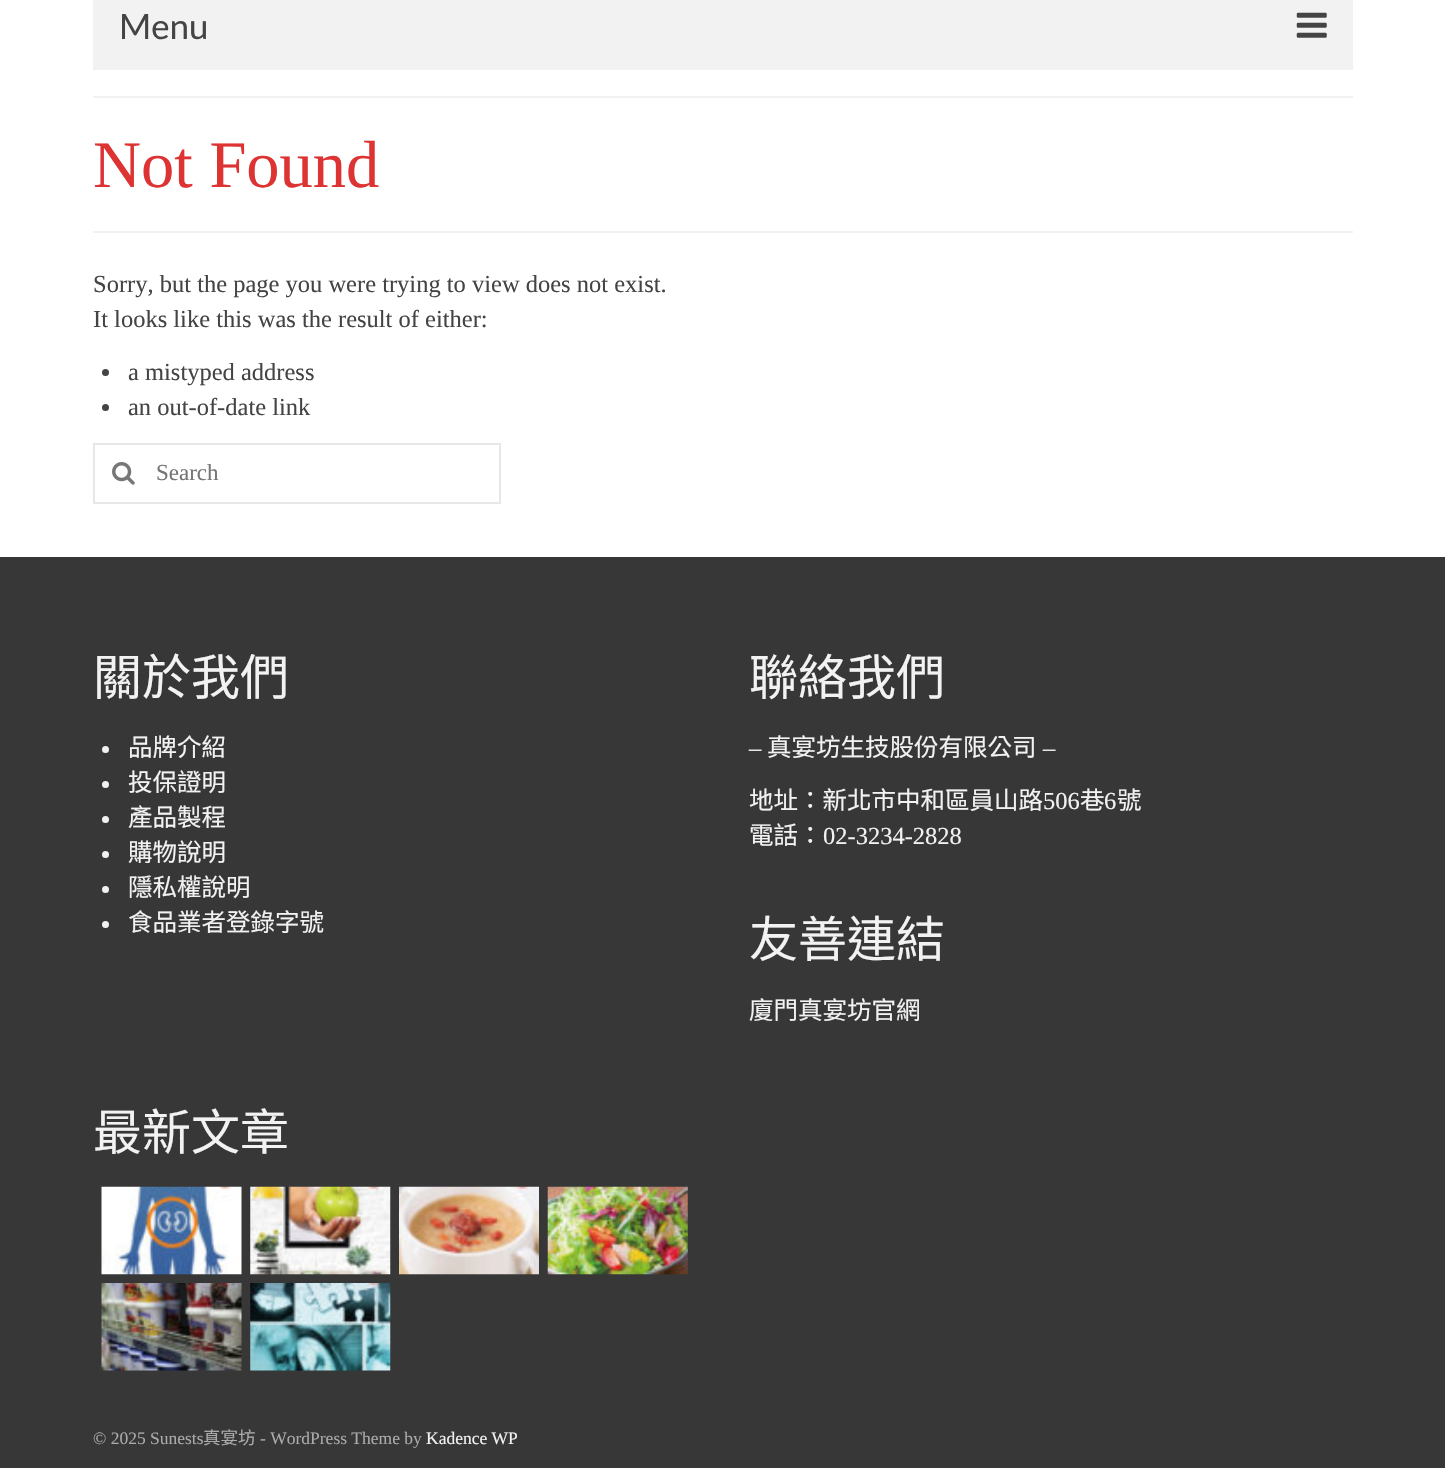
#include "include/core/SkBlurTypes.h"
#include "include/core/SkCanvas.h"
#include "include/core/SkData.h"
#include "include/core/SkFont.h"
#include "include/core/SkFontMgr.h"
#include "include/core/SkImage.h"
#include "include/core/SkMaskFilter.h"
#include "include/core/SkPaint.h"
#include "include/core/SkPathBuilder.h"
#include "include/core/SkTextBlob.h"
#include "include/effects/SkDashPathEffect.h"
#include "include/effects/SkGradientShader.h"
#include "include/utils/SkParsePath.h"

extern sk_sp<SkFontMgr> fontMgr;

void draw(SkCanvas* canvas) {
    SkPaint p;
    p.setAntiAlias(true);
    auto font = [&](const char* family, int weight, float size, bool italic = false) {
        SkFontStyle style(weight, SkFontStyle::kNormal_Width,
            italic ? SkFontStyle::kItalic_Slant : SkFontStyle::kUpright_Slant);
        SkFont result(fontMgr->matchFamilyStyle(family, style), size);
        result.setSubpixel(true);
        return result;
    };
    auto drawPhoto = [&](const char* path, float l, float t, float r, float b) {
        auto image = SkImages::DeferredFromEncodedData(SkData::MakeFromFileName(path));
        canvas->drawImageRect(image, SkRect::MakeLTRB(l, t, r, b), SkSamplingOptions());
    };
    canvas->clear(0xFFFFFFFF);
    p.setColor(0xFFF2F2F2);
    canvas->drawRect(SkRect::MakeLTRB(93, 0, 1353, 70), p);
    auto font1 = font("Lato", 400, 35);
    p.setColor(0xFF444444);
    canvas->drawString("Menu", 119, 39, font1, p);
    drawPhoto("media/1.png", 1296, 12, 1327, 38);
    p.setColor(0xFFF2F2F2);
    canvas->drawRect(SkRect::MakeLTRB(93, 96, 1353, 98), p);
    canvas->drawRect(SkRect::MakeLTRB(93, 231, 1353, 233), p);
    auto font2 = font("Liberation Serif", 400, 66.5f);
    p.setColor(0xFFDD3333);
    canvas->drawString("Not Found", 93, 187, font2, p);
    auto font3 = font("Liberation Serif", 400, 24.5f);
    p.setColor(0xFF444444);
    canvas->drawString("Sorry, but the page you were trying to view does not exist.", 93, 292, font3, p);
    canvas->drawString("It looks like this was the result of either:", 93, 327, font3, p);
    canvas->drawCircle(105.5f, 372.5f, 3.5f, p);
    canvas->drawString("a mistyped address", 128, 380, font3, p);
    canvas->drawCircle(105.5f, 407.5f, 3.5f, p);
    canvas->drawString("an out-of-date link", 128, 415, font3, p);
    p.setStyle(SkPaint::kStroke_Style);
    p.setStrokeWidth(2);
    p.setColor(0xFFE7E7E7);
    canvas->drawRect(SkRect::MakeLTRB(94, 444, 500, 503), p);
    drawPhoto("media/2.png", 112, 462, 135, 485);
    auto font4 = font("Liberation Serif", 400, 23);
    p.setStyle(SkPaint::kFill_Style);
    p.setColor(0xFF757575);
    canvas->drawString("Search", 156, 480, font4, p);
    p.setColor(0xFF373737);
    canvas->drawRect(SkRect::MakeLTRB(0, 557, 1445, 1468), p);
    auto font5 = font("Noto Sans CJK TC", 400, 49);
    p.setColor(0xFFF2F2F2);
    canvas->drawString("關於我們", 93, 695, font5, p);
    canvas->drawCircle(105.5f, 749.5f, 3.5f, p);
    auto font6 = font("Noto Sans CJK TC", 400, 24.5f);
    canvas->drawString("品牌介紹", 128, 756, font6, p);
    canvas->drawCircle(105.5f, 784.5f, 3.5f, p);
    canvas->drawString("投保證明", 128, 791, font6, p);
    canvas->drawCircle(105.5f, 819.5f, 3.5f, p);
    canvas->drawString("產品製程", 128, 826, font6, p);
    canvas->drawCircle(105.5f, 854.5f, 3.5f, p);
    canvas->drawString("購物說明", 128, 861, font6, p);
    canvas->drawCircle(105.5f, 889.5f, 3.5f, p);
    canvas->drawString("隱私權說明", 128, 896, font6, p);
    canvas->drawCircle(105.5f, 924.5f, 3.5f, p);
    canvas->drawString("食品業者登錄字號", 128, 931, font6, p);
    canvas->drawString("聯絡我們", 749, 695, font5, p);
    canvas->drawString("–", 749, 756, font3, p);
    canvas->drawString("真宴坊生技股份有限公司", 767, 756, font6, p);
    canvas->drawString("–", 1043, 756, font3, p);
    canvas->drawString("地址：新北市中和區員山路", 749, 809, font6, p);
    canvas->drawString("506", 1043, 809, font3, p);
    canvas->drawString("巷", 1080, 809, font6, p);
    canvas->drawString("6", 1104, 809, font3, p);
    canvas->drawString("號", 1117, 809, font6, p);
    canvas->drawString("電話：", 749, 844, font6, p);
    canvas->drawString("02-3234-2828", 823, 844, font3, p);
    canvas->drawString("友善連結", 749, 957, font5, p);
    canvas->drawString("廈門真宴坊官網", 749, 1019, font6, p);
    canvas->drawString("最新文章", 93, 1150, font5, p);
    drawPhoto("media/3.png", 101, 1186, 242, 1275);
    drawPhoto("media/4.png", 250, 1186, 391, 1275);
    drawPhoto("media/5.png", 399, 1186, 539, 1275);
    drawPhoto("media/6.png", 547, 1186, 688, 1275);
    drawPhoto("media/7.png", 101, 1283, 242, 1371);
    drawPhoto("media/8.png", 250, 1283, 391, 1371);
    auto font7 = font("Liberation Serif", 400, 17.5f);
    p.setColor(0xFFAAAAAA);
    canvas->drawString("© 2025 Sunests", 93, 1444, font7, p);
    auto font8 = font("Noto Sans CJK TC", 400, 17.5f);
    canvas->drawString("真宴坊", 203, 1444, font8, p);
    canvas->drawString("- WordPress Theme by", 260, 1444, font7, p);
    p.setColor(0xFFF2F2F2);
    canvas->drawString("Kadence WP", 426, 1444, font7, p);
}
